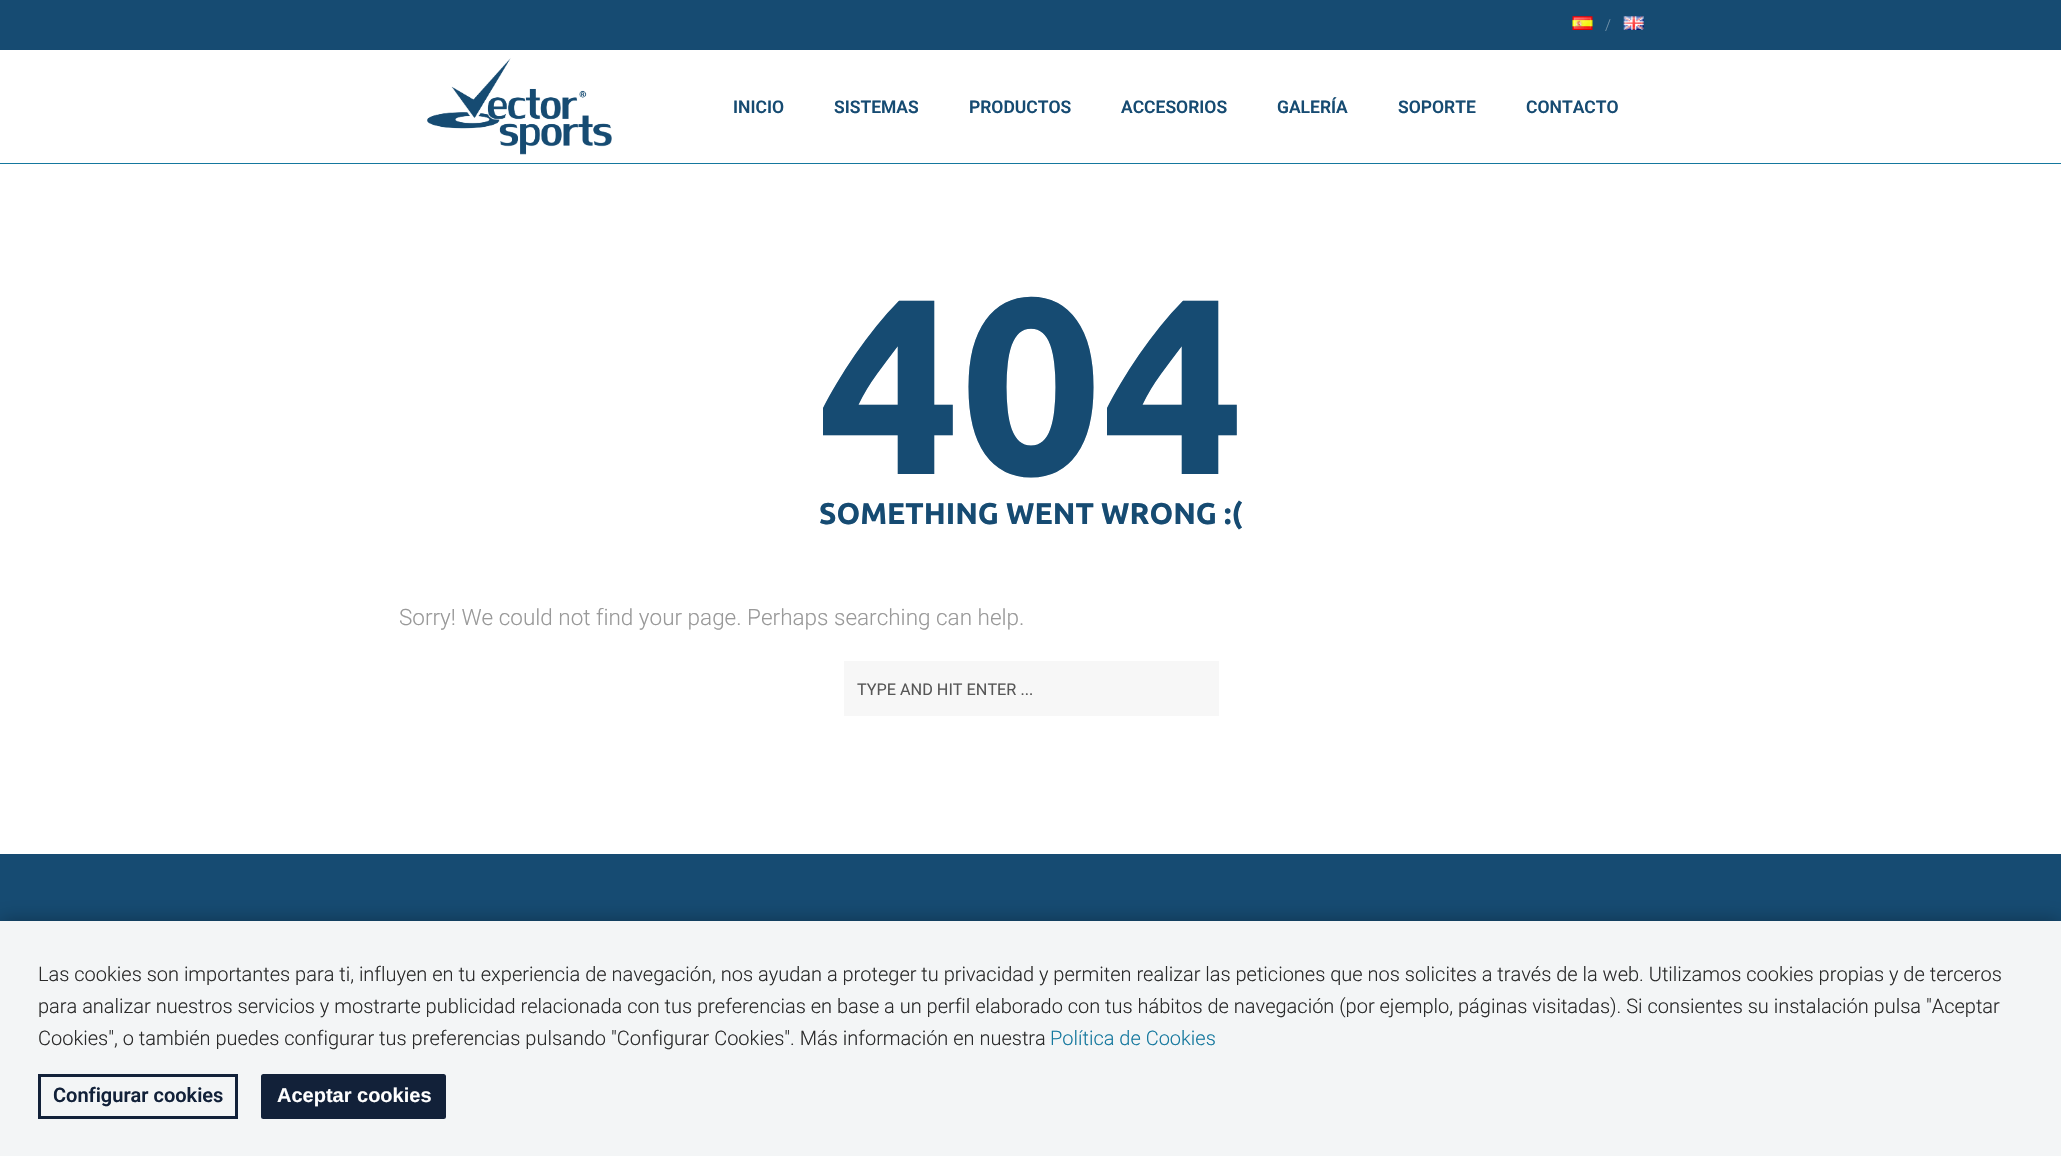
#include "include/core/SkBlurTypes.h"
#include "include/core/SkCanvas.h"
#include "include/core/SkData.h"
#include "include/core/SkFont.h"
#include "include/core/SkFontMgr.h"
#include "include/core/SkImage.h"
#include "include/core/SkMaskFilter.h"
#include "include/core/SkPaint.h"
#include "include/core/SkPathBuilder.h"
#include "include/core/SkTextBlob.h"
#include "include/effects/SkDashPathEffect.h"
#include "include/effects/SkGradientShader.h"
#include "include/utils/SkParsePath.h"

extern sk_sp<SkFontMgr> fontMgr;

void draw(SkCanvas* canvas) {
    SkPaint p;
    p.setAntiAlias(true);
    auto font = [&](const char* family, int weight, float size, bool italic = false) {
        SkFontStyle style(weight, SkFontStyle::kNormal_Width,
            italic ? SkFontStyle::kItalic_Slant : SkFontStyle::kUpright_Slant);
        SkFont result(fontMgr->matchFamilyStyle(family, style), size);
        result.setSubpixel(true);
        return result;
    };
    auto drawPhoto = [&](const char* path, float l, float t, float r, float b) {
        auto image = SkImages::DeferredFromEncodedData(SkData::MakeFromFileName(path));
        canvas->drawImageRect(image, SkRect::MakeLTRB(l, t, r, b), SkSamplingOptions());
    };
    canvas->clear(0xFFFFFFFF);
    p.setColor(0xFF164B72);
    canvas->drawRect(SkRect::MakeLTRB(0, 0, 2061, 50), p);
    drawPhoto("media/1.png", 1572, 16, 1593, 30);
    auto font1 = font("Roboto", 300, 15);
    p.setColor(0xFF7393AA);
    canvas->drawString("/", 1605, 30, font1, p);
    drawPhoto("media/2.png", 1623, 16, 1644, 30);
    p.setColor(0xFF15789E);
    canvas->drawRect(SkRect::MakeLTRB(0, 163, 2061, 164), p);
    drawPhoto("media/3.png", 427, 58, 612, 155);
    auto font2 = font("Roboto", 600, 17.5f);
    p.setColor(0xFF164B72);
    {
        const struct { const char* s; float x, y; } items[] = {
            {"INICIO", 733, 113},
            {"SISTEMAS", 834, 113},
            {"PRODUCTOS", 969, 113},
            {"ACCESORIOS", 1121, 113},
            {"GALERÍA", 1277, 113},
            {"SOPORTE", 1398, 113},
            {"CONTACTO", 1526, 113},
        };
        for (auto [s, x, y] : items) {
            canvas->drawString(s, x, y, font2, p);
        }
    }
    auto font3 = font("Ubuntu", 700, 250);
    canvas->drawString("404", 818, 474, font3, p);
    auto font4 = font("Ubuntu", 700, 30);
    canvas->drawString("SOMETHING WENT WRONG :(", 819, 524, font4, p);
    auto font5 = font("Roboto", 300, 22.5f);
    p.setColor(0xFF999999);
    canvas->drawString("Sorry! We could not find your page. Perhaps searching can help.", 399, 625, font5, p);
    p.setColor(0xFFF7F7F7);
    canvas->drawRect(SkRect::MakeLTRB(844, 661, 1219, 716), p);
    auto font6 = font("Roboto", 400, 16.25f);
    p.setColor(0xFF575757);
    canvas->drawString("TYPE AND HIT ENTER ...", 857, 695, font6, p);
    p.setColor(0xFF164B72);
    canvas->drawRect(SkRect::MakeLTRB(0, 854, 2061, 921), p);
    p.setColor(0x54000000);
    p.setMaskFilter(SkMaskFilter::MakeBlur(kNormal_SkBlurStyle, 9.5f));
    canvas->drawRect(SkRect::MakeLTRB(0, 921, 2061, 1156), p);
    p.setMaskFilter(nullptr);
    p.setColor(0xFFF3F5F6);
    canvas->drawRect(SkRect::MakeLTRB(0, 921, 2061, 1156), p);
    auto font7 = font("Roboto", 300, 20);
    p.setColor(0xFF2A2A2A);
    {
        const struct { const char* s; float x, y; } items[] = {
            {"Las cookies son importantes para ti, influyen en tu experiencia de navegación, nos ayudan a proteger tu privacidad y permiten realizar las peticiones que nos solicites a través de la web. Utilizamos cookies propias y de terceros", 38, 981},
            {"para analizar nuestros servicios y mostrarte publicidad relacionada con tus preferencias en base a un perfil elaborado con tus hábitos de navegación (por ejemplo, páginas visitadas). Si consientes su instalación pulsa \"Aceptar", 38, 1013},
            {"Cookies\", o también puedes configurar tus preferencias pulsando \"Configurar Cookies\". Más información en nuestra", 38, 1045},
        };
        for (auto [s, x, y] : items) {
            canvas->drawString(s, x, y, font7, p);
        }
    }
    p.setColor(0xFF15789E);
    canvas->drawString("Política de Cookies", 1050, 1045, font7, p);
    p.setStyle(SkPaint::kStroke_Style);
    p.setStrokeWidth(3);
    p.setColor(0xFF122139);
    canvas->drawRect(SkRect::MakeLTRB(39.5f, 1075.5f, 236.5f, 1117.5f), p);
    auto font8 = font("Roboto", 600, 20);
    p.setStyle(SkPaint::kFill_Style);
    canvas->drawString("Configurar cookies", 53, 1102, font8, p);
    canvas->drawRoundRect(SkRect::MakeLTRB(262.5f, 1075.5f, 444.5f, 1117.5f), 1, 1, p);
    p.setStyle(SkPaint::kStroke_Style);
    canvas->drawRoundRect(SkRect::MakeLTRB(262.5f, 1075.5f, 444.5f, 1117.5f), 1, 1, p);
    auto font9 = font("Liberation Sans", 700, 20);
    p.setStyle(SkPaint::kFill_Style);
    p.setColor(0xFFFFFFFF);
    canvas->drawString("Aceptar cookies", 277, 1102, font9, p);
}
